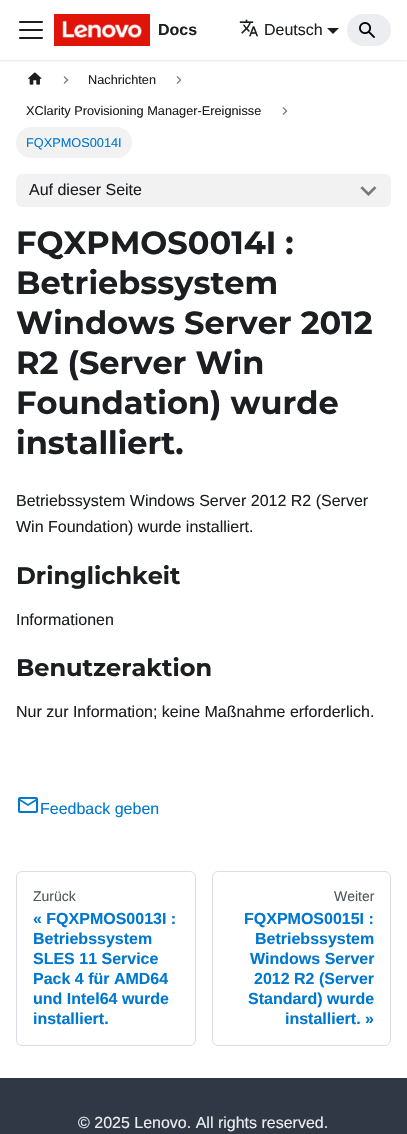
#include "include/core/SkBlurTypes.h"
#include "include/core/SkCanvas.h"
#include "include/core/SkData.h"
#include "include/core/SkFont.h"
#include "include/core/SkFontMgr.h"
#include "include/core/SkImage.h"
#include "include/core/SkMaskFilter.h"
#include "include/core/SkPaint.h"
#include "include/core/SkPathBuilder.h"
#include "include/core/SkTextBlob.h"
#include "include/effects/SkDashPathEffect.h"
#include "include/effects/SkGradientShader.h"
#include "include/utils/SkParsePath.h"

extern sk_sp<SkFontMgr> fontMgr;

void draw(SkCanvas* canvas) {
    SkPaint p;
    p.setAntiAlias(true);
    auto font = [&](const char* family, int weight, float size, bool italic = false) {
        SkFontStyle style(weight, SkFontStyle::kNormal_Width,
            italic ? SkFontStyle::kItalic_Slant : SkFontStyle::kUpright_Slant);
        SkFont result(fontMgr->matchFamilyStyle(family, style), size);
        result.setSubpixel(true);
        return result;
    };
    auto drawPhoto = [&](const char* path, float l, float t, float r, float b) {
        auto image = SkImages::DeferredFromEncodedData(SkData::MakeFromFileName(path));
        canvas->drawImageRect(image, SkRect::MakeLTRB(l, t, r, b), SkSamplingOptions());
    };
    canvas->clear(0xFFFFFFFF);
    canvas->save();
    canvas->clipRect(SkRect::MakeLTRB(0, 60, 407, 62));
    p.setColor(0x1A000000);
    p.setMaskFilter(SkMaskFilter::MakeBlur(kNormal_SkBlurStyle, 1));
    canvas->drawRect(SkRect::MakeLTRB(0, 1, 407, 61), p);
    p.setMaskFilter(nullptr);
    canvas->restore();
    drawPhoto("media/1.png", 19, 21, 43, 39);
    drawPhoto("media/2.png", 54, 14, 150, 46);
    auto font1 = font("Liberation Sans", 700, 16);
    p.setColor(0xFF1C1E21);
    canvas->drawString("Docs", 158, 35, font1, p);
    drawPhoto("media/3.png", 239, 19, 259, 37);
    auto font2 = font("Liberation Sans", 400, 16);
    canvas->drawString("Deutsch", 264, 35, font2, p);
    canvas->drawPath(SkPathBuilder().moveTo(327, 28).lineTo(339, 28).lineTo(333, 34).close().detach(), p);
    p.setColor(0xFFEBEDF0);
    canvas->drawRoundRect(SkRect::MakeLTRB(347, 14, 391, 46), 16, 16, p);
    drawPhoto("media/4.png", 359, 22, 375, 38);
    drawPhoto("media/5.png", 28, 72, 42, 85);
    drawPhoto("media/6.png", 63, 76, 69, 84);
    auto font3 = font("Liberation Sans", 400, 12.75f);
    p.setColor(0xFF1C1E21);
    canvas->drawString("Nachrichten", 88, 84, font3, p);
    drawPhoto("media/6.png", 176, 76, 182, 84);
    canvas->drawString("XClarity Provisioning Manager-Ereignisse", 26, 115, font3, p);
    drawPhoto("media/6.png", 282, 107, 288, 115);
    p.setColor(0xFFF2F2F2);
    canvas->drawRoundRect(SkRect::MakeLTRB(16, 127, 132, 158), 15.5f, 15.5f, p);
    p.setColor(0xFF0078D0);
    canvas->drawString("FQXPMOS0014I", 26, 147, font3, p);
    p.setColor(0xFFF2F2F2);
    canvas->drawRoundRect(SkRect::MakeLTRB(16, 174, 391, 207), 6, 6, p);
    p.setColor(0xFF1C1E21);
    canvas->drawString("Auf dieser Seite", 29, 195, font2, p);
    drawPhoto("media/7.png", 360, 186, 377, 196);
    auto font4 = font("Montserrat", 700, 32);
    {
        const struct { const char* s; float x, y; } items[] = {
            {"FQXPMOS0014I :", 16, 254},
            {"Betriebssystem", 16, 294},
            {"Windows Server 2012", 16, 334},
            {"R2 (Server Win", 16, 374},
            {"Foundation) wurde", 16, 414},
            {"installiert.", 16, 454},
        };
        for (auto [s, x, y] : items) {
            canvas->drawString(s, x, y, font4, p);
        }
    }
    canvas->drawString("Betriebssystem Windows Server 2012 R2 (Server", 16, 506, font2, p);
    canvas->drawString("Win Foundation) wurde installiert.", 16, 532, font2, p);
    auto font5 = font("Montserrat", 700, 24);
    canvas->drawString("Dringlichkeit", 16, 584, font5, p);
    canvas->drawString("Informationen", 16, 625, font2, p);
    canvas->drawString("Benutzeraktion", 16, 676, font5, p);
    canvas->drawString("Nur zur Information; keine Maßnahme erforderlich.", 16, 717, font2, p);
    drawPhoto("media/8.png", 18, 797, 38, 813);
    p.setColor(0xFF0078D0);
    canvas->drawString("Feedback geben", 40, 814, font2, p);
    p.setStyle(SkPaint::kStroke_Style);
    p.setStrokeWidth(1);
    p.setColor(0xFFDADDE1);
    canvas->drawRoundRect(SkRect::MakeLTRB(16.5f, 871.5f, 195.5f, 1045.5f), 5.5f, 5.5f, p);
    auto font6 = font("Liberation Sans", 400, 14);
    p.setStyle(SkPaint::kFill_Style);
    p.setColor(0xFF525860);
    canvas->drawString("Zurück", 33, 901, font6, p);
    p.setColor(0xFF0078D0);
    {
        const struct { const char* s; float x, y; } items[] = {
            {"« FQXPMOS0013I :", 33, 924},
            {"Betriebssystem", 33, 944},
            {"SLES 11 Service", 33, 964},
            {"Pack 4 für AMD64", 33, 984},
            {"und Intel64 wurde", 33, 1004},
            {"installiert.", 33, 1024},
        };
        for (auto [s, x, y] : items) {
            canvas->drawString(s, x, y, font1, p);
        }
    }
    p.setStyle(SkPaint::kStroke_Style);
    p.setColor(0xFFDADDE1);
    canvas->drawRoundRect(SkRect::MakeLTRB(212.5f, 871.5f, 390.5f, 1045.5f), 5.5f, 5.5f, p);
    p.setStyle(SkPaint::kFill_Style);
    p.setColor(0xFF525860);
    canvas->drawString("Weiter", 334, 901, font6, p);
    p.setColor(0xFF0078D0);
    {
        const struct { const char* s; float x, y; } items[] = {
            {"FQXPMOS0015I :", 244, 924},
            {"Betriebssystem", 255, 944},
            {"Windows Server", 250, 964},
            {"2012 R2 (Server", 254, 984},
            {"Standard) wurde", 248, 1004},
            {"installiert. »", 285, 1024},
        };
        for (auto [s, x, y] : items) {
            canvas->drawString(s, x, y, font1, p);
        }
    }
    p.setColor(0xFF303846);
    canvas->drawRect(SkRect::MakeLTRB(0, 1078, 407, 1134), p);
    p.setColor(0xFFEBEDF0);
    canvas->drawString("© 2025 Lenovo. All rights reserved.", 78, 1128, font2, p);
}
